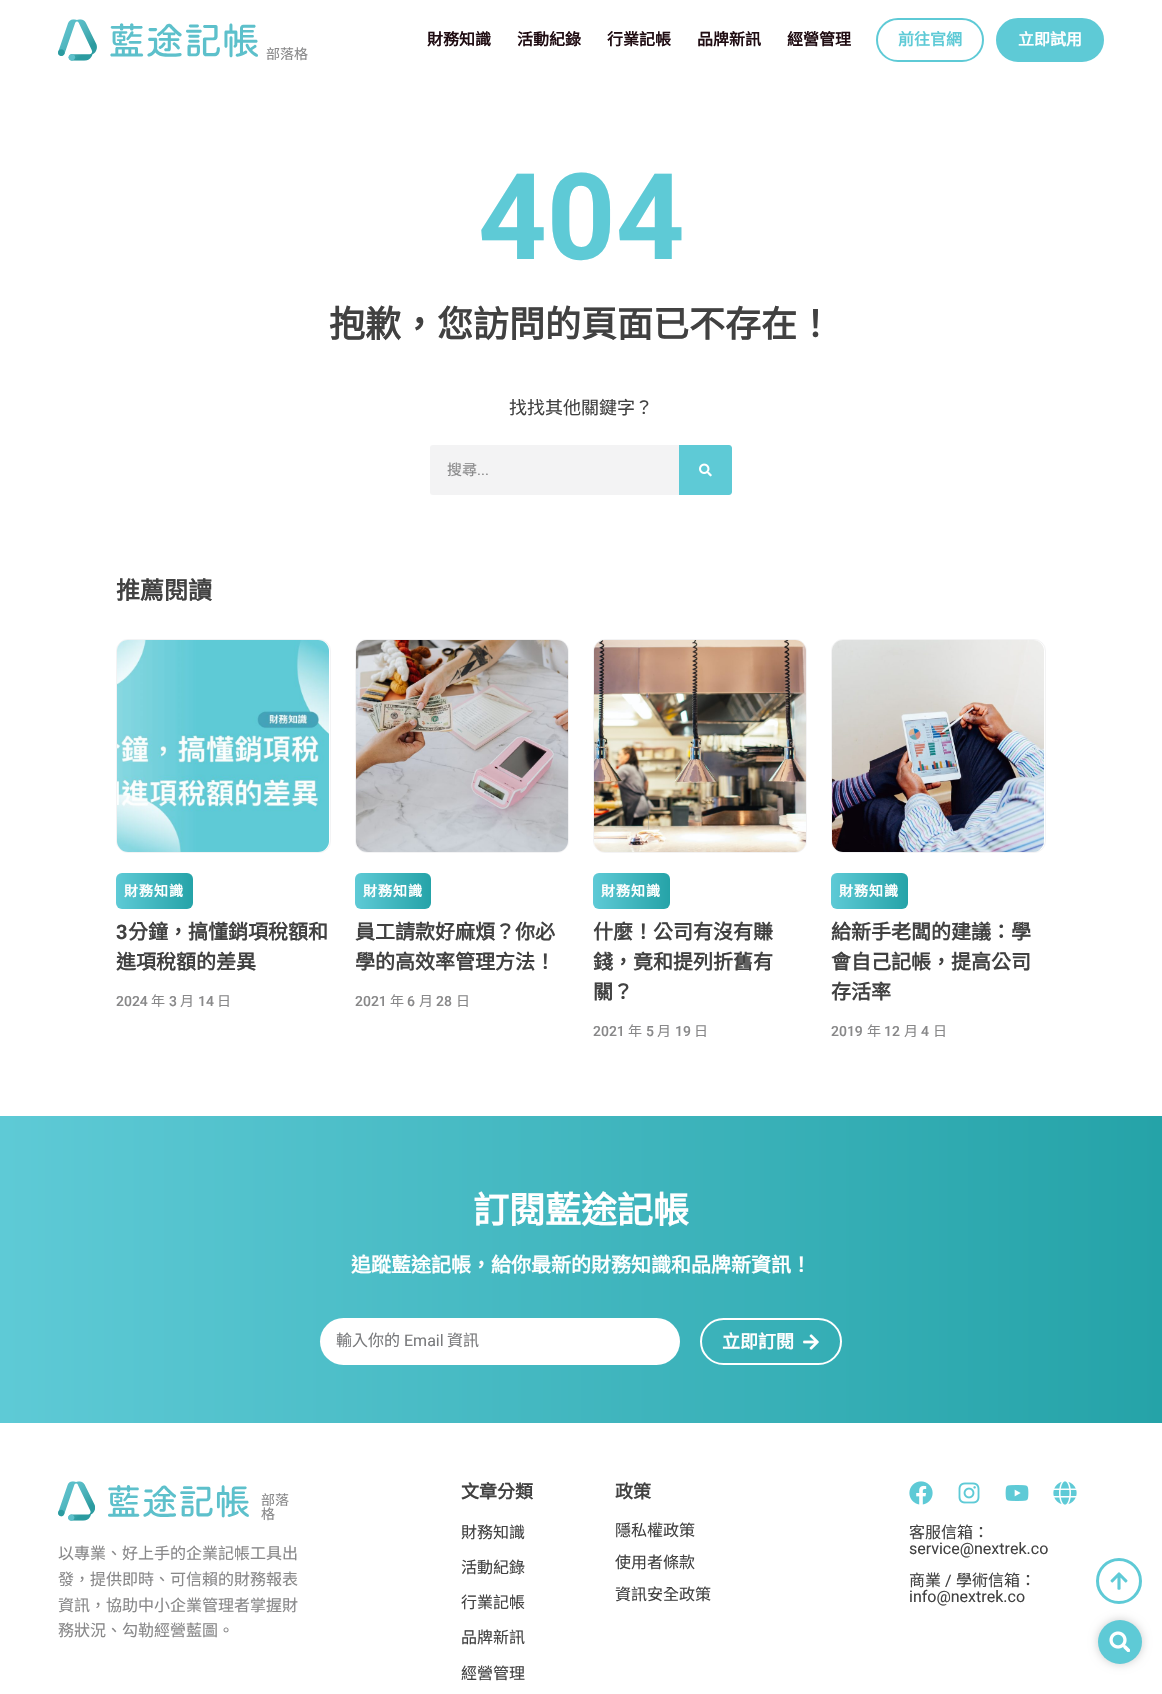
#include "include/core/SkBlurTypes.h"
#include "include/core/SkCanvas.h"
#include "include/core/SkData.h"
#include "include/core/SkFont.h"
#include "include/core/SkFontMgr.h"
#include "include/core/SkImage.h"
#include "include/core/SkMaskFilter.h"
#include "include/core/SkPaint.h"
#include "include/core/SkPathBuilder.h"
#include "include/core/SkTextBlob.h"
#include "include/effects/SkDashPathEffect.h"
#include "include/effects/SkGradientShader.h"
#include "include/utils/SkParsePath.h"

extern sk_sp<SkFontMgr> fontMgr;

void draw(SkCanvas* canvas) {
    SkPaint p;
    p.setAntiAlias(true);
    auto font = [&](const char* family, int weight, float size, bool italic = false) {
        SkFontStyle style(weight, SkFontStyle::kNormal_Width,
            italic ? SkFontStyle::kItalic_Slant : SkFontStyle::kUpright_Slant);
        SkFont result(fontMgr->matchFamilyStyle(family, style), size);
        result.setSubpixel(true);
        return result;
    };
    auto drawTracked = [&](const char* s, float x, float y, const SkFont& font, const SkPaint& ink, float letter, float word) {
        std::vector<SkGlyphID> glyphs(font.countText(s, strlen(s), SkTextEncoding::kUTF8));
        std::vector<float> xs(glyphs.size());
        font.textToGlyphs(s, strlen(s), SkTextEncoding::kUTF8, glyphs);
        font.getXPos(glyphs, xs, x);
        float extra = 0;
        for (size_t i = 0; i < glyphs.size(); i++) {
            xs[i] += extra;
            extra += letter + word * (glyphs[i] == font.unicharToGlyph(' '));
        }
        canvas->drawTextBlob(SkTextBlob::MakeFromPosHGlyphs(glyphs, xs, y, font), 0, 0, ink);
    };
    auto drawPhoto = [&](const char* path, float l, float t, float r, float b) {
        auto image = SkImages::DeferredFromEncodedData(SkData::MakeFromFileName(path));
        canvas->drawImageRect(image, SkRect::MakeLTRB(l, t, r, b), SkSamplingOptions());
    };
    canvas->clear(0xFFFFFFFF);
    auto font1 = font("Noto Sans CJK TC", 700, 16);
    p.setColor(0xFF1F0C12);
    {
        const struct { const char* s; float x, y; } items[] = {
            {"財務知識", 427, 45},
            {"活動紀錄", 517, 45},
            {"行業記帳", 607, 45},
            {"品牌新訊", 697, 45},
            {"經營管理", 787, 45},
        };
        for (auto [s, x, y] : items) {
            canvas->drawString(s, x, y, font1, p);
        }
    }
    p.setStyle(SkPaint::kStroke_Style);
    p.setStrokeWidth(2);
    p.setColor(0xFF5ECAD6);
    canvas->drawRoundRect(SkRect::MakeLTRB(877, 19, 983, 61), 21, 21, p);
    p.setStyle(SkPaint::kFill_Style);
    canvas->drawString("前往官網", 898, 45, font1, p);
    canvas->drawRoundRect(SkRect::MakeLTRB(997, 19, 1103, 61), 21, 21, p);
    p.setStyle(SkPaint::kStroke_Style);
    canvas->drawRoundRect(SkRect::MakeLTRB(997, 19, 1103, 61), 21, 21, p);
    p.setStyle(SkPaint::kFill_Style);
    p.setColor(0xFFFFFFFF);
    canvas->drawString("立即試用", 1018, 45, font1, p);
    drawPhoto("media/1.png", 58, 19, 258, 61);
    auto font2 = font("Noto Sans CJK TC", 400, 14);
    p.setColor(0xFF888889);
    canvas->drawString("部落格", 266, 59, font2, p);
    auto font3 = font("Roboto", 700, 120);
    p.setColor(0xFF5ECAD6);
    canvas->drawString("404", 478, 259, font3, p);
    auto font4 = font("Noto Sans CJK TC", 700, 36);
    p.setColor(0xFF414141);
    canvas->drawString("抱歉，您訪問的頁面已不存在！", 329, 337, font4, p);
    auto font5 = font("Noto Sans CJK TC", 400, 18);
    canvas->drawString("找找其他關鍵字？", 509, 414, font5, p);
    p.setColor(0xFFF3F3F4);
    canvas->drawRoundRect(SkRect::MakeLTRB(430, 445, 732, 495), 3, 3, p);
    auto font6 = font("Noto Sans CJK TC", 400, 15);
    p.setColor(0xFF888889);
    canvas->drawString("搜尋", 447, 475, font6, p);
    auto font7 = font("Roboto", 400, 15);
    canvas->drawString("...", 477, 475, font7, p);
    p.setColor(0xFF5ECAD6);
    canvas->drawPath(SkPathBuilder().moveTo(679, 445).lineTo(729, 445).cubicTo(730.5f, 445, 732, 446.5f, 732, 448).lineTo(732, 492).cubicTo(732, 493.5f, 730.5f, 495, 729, 495).lineTo(679, 495).close().detach(), p);
    drawPhoto("media/2.png", 699, 463, 712, 477);
    auto font8 = font("Noto Sans CJK TC", 700, 24);
    p.setColor(0xFF414141);
    canvas->drawString("推薦閱讀", 116, 599, font8, p);
    p.setStyle(SkPaint::kStroke_Style);
    p.setStrokeWidth(1);
    p.setColor(0xFFF3F3F4);
    canvas->drawRoundRect(SkRect::MakeLTRB(116.5f, 639.5f, 330.5f, 852.5f), 11.5f, 11.5f, p);
    drawPhoto("media/3.png", 117, 640, 329, 852);
    p.setStyle(SkPaint::kFill_Style);
    {
        const SkColor colors[] = {0xFF5ECAD6, 0xFF25A3A8};
        const float stops[] = {0, 1};
        const SkPoint ends[] = {{116, 891}, {193, 891}};
        p.setShader(SkGradientShader::MakeLinear(ends, colors, stops, 2, SkTileMode::kClamp));
        p.setAlpha(255);
    }
    canvas->drawRoundRect(SkRect::MakeLTRB(116, 873, 193, 909), 6, 6, p);
    auto font9 = font("Noto Sans CJK TC", 700, 14);
    p.setShader(nullptr);
    p.setColor(0xFFFFFFFF);
    drawTracked("財務知識", 124, 896, font9, p, 1, 0);
    auto font10 = font("Roboto", 700, 20);
    p.setColor(0xFF414141);
    canvas->drawString("3", 116, 939, font10, p);
    auto font11 = font("Noto Sans CJK TC", 700, 20);
    canvas->drawString("分鐘，搞懂銷項稅額和", 128, 939, font11, p);
    canvas->drawString("進項稅額的差異", 116, 969, font11, p);
    auto font12 = font("Roboto", 500, 14);
    p.setColor(0xFF888889);
    canvas->drawString("2024", 116, 1006, font12, p);
    canvas->drawString("年", 151, 1006, font2, p);
    canvas->drawString("3", 169, 1006, font12, p);
    canvas->drawString("月", 180, 1006, font2, p);
    canvas->drawString("14", 198, 1006, font12, p);
    canvas->drawString("日", 217, 1006, font2, p);
    p.setStyle(SkPaint::kStroke_Style);
    p.setColor(0xFFF3F3F4);
    canvas->drawRoundRect(SkRect::MakeLTRB(355.5f, 639.5f, 568.5f, 852.5f), 11.5f, 11.5f, p);
    drawPhoto("media/4.png", 356, 640, 568, 852);
    p.setStyle(SkPaint::kFill_Style);
    {
        const SkColor colors[] = {0xFF5ECAD6, 0xFF25A3A8};
        const float stops[] = {0, 1};
        const SkPoint ends[] = {{355, 891}, {431, 891}};
        p.setShader(SkGradientShader::MakeLinear(ends, colors, stops, 2, SkTileMode::kClamp));
        p.setAlpha(255);
    }
    canvas->drawRoundRect(SkRect::MakeLTRB(355, 873, 431, 909), 6, 6, p);
    p.setShader(nullptr);
    p.setColor(0xFFFFFFFF);
    drawTracked("財務知識", 363, 896, font9, p, 1, 0);
    p.setColor(0xFF414141);
    canvas->drawString("員工請款好麻煩？你必", 355, 939, font11, p);
    canvas->drawString("學的高效率管理方法！", 355, 969, font11, p);
    p.setColor(0xFF888889);
    canvas->drawString("2021", 355, 1006, font12, p);
    canvas->drawString("年", 390, 1006, font2, p);
    canvas->drawString("6", 407, 1006, font12, p);
    canvas->drawString("月", 419, 1006, font2, p);
    canvas->drawString("28", 436, 1006, font12, p);
    canvas->drawString("日", 456, 1006, font2, p);
    p.setStyle(SkPaint::kStroke_Style);
    p.setColor(0xFFF3F3F4);
    canvas->drawRoundRect(SkRect::MakeLTRB(593.5f, 639.5f, 806.5f, 852.5f), 11.5f, 11.5f, p);
    drawPhoto("media/5.png", 594, 640, 806, 852);
    p.setStyle(SkPaint::kFill_Style);
    {
        const SkColor colors[] = {0xFF5ECAD6, 0xFF25A3A8};
        const float stops[] = {0, 1};
        const SkPoint ends[] = {{593, 891}, {670, 891}};
        p.setShader(SkGradientShader::MakeLinear(ends, colors, stops, 2, SkTileMode::kClamp));
        p.setAlpha(255);
    }
    canvas->drawRoundRect(SkRect::MakeLTRB(593, 873, 670, 909), 6, 6, p);
    p.setShader(nullptr);
    p.setColor(0xFFFFFFFF);
    drawTracked("財務知識", 601, 896, font9, p, 1, 0);
    p.setColor(0xFF414141);
    {
        const struct { const char* s; float x, y; } items[] = {
            {"什麼！公司有沒有賺", 593, 939},
            {"錢，竟和提列折舊有", 593, 969},
            {"關？", 593, 999},
        };
        for (auto [s, x, y] : items) {
            canvas->drawString(s, x, y, font11, p);
        }
    }
    p.setColor(0xFF888889);
    canvas->drawString("2021", 593, 1036, font12, p);
    canvas->drawString("年", 628, 1036, font2, p);
    canvas->drawString("5", 646, 1036, font12, p);
    canvas->drawString("月", 657, 1036, font2, p);
    canvas->drawString("19", 675, 1036, font12, p);
    canvas->drawString("日", 694, 1036, font2, p);
    p.setStyle(SkPaint::kStroke_Style);
    p.setColor(0xFFF3F3F4);
    canvas->drawRoundRect(SkRect::MakeLTRB(831.5f, 639.5f, 1045.5f, 852.5f), 11.5f, 11.5f, p);
    drawPhoto("media/6.png", 832, 640, 1044, 852);
    p.setStyle(SkPaint::kFill_Style);
    {
        const SkColor colors[] = {0xFF5ECAD6, 0xFF25A3A8};
        const float stops[] = {0, 1};
        const SkPoint ends[] = {{831, 891}, {908, 891}};
        p.setShader(SkGradientShader::MakeLinear(ends, colors, stops, 2, SkTileMode::kClamp));
        p.setAlpha(255);
    }
    canvas->drawRoundRect(SkRect::MakeLTRB(831, 873, 908, 909), 6, 6, p);
    p.setShader(nullptr);
    p.setColor(0xFFFFFFFF);
    drawTracked("財務知識", 839, 896, font9, p, 1, 0);
    p.setColor(0xFF414141);
    {
        const struct { const char* s; float x, y; } items[] = {
            {"給新手老闆的建議：學", 831, 939},
            {"會自己記帳，提高公司", 831, 969},
            {"存活率", 831, 999},
        };
        for (auto [s, x, y] : items) {
            canvas->drawString(s, x, y, font11, p);
        }
    }
    p.setColor(0xFF888889);
    canvas->drawString("2019", 831, 1036, font12, p);
    canvas->drawString("年", 867, 1036, font2, p);
    canvas->drawString("12", 884, 1036, font12, p);
    canvas->drawString("月", 904, 1036, font2, p);
    canvas->drawString("4", 921, 1036, font12, p);
    canvas->drawString("日", 933, 1036, font2, p);
    {
        const SkColor colors[] = {0xFF5ECAD6, 0xFF25A3A8};
        const float stops[] = {0, 1};
        const SkPoint ends[] = {{0, 1270}, {1162, 1270}};
        p.setShader(SkGradientShader::MakeLinear(ends, colors, stops, 2, SkTileMode::kClamp));
        p.setAlpha(255);
    }
    canvas->drawRect(SkRect::MakeLTRB(0, 1116, 1162, 1423), p);
    p.setShader(nullptr);
    p.setColor(0xFFFFFFFF);
    canvas->drawString("訂閱藍途記帳", 473, 1223, font4, p);
    canvas->drawString("追蹤藍途記帳，給你最新的財務知識和品牌新資訊！", 351, 1272, font11, p);
    canvas->drawRoundRect(SkRect::MakeLTRB(320, 1318, 680, 1365), 23.5f, 23.5f, p);
    auto font13 = font("Noto Sans CJK TC", 400, 16);
    p.setColor(0xFF797A7C);
    canvas->drawString("輸入你的", 336, 1346, font13, p);
    auto font14 = font("Roboto", 400, 16);
    canvas->drawString("Email", 404, 1346, font14, p);
    canvas->drawString("資訊", 447, 1346, font13, p);
    p.setStyle(SkPaint::kStroke_Style);
    p.setStrokeWidth(2);
    p.setColor(0xFFFFFFFF);
    canvas->drawRoundRect(SkRect::MakeLTRB(701, 1319, 841, 1364), 22.5f, 22.5f, p);
    auto font15 = font("Noto Sans CJK TC", 700, 18);
    p.setStyle(SkPaint::kFill_Style);
    canvas->drawString("立即訂閱", 722, 1348, font15, p);
    drawPhoto("media/7.png", 803, 1334, 819, 1350);
    drawPhoto("media/8.png", 58, 1481, 249, 1521);
    p.setColor(0xFF888889);
    canvas->drawString("部落", 261, 1505, font2, p);
    canvas->drawString("格", 261, 1519, font2, p);
    {
        const struct { const char* s; float x, y; } items[] = {
            {"以專業、好上手的企業記帳工具出", 58, 1559},
            {"發，提供即時、可信賴的財務報表", 58, 1585},
            {"資訊，協助中小企業管理者掌握財", 58, 1611},
            {"務狀況、勾勒經營藍圖。", 58, 1636},
        };
        for (auto [s, x, y] : items) {
            canvas->drawString(s, x, y, font13, p);
        }
    }
    p.setColor(0xFF414141);
    canvas->drawString("文章分類", 461, 1498, font15, p);
    {
        const struct { const char* s; float x, y; } items[] = {
            {"財務知識", 461, 1538},
            {"活動紀錄", 461, 1573},
            {"行業記帳", 461, 1608},
            {"品牌新訊", 461, 1643},
            {"經營管理", 461, 1679},
        };
        for (auto [s, x, y] : items) {
            canvas->drawString(s, x, y, font13, p);
        }
    }
    canvas->drawString("政策", 615, 1498, font15, p);
    {
        const struct { const char* s; float x, y; } items[] = {
            {"隱私權政策", 615, 1536},
            {"使用者條款", 615, 1568},
            {"資訊安全政策", 615, 1600},
        };
        for (auto [s, x, y] : items) {
            canvas->drawString(s, x, y, font13, p);
        }
    }
    drawPhoto("media/9.png", 909, 1481, 933, 1505);
    drawPhoto("media/10.png", 958, 1482, 980, 1504);
    drawPhoto("media/11.png", 1005, 1485, 1029, 1501);
    drawPhoto("media/12.png", 1053, 1481, 1077, 1505);
    canvas->drawString("客服信箱：", 909, 1538, font13, p);
    canvas->drawString("service@nextrek.co", 909, 1554, font14, p);
    canvas->drawString("商業", 909, 1586, font13, p);
    canvas->drawString("/", 945, 1586, font14, p);
    canvas->drawString("學術信箱：", 956, 1586, font13, p);
    canvas->drawString("info@nextrek.co", 909, 1602, font14, p);
    p.setStyle(SkPaint::kStroke_Style);
    p.setStrokeWidth(3);
    p.setColor(0xFF5ECAD6);
    canvas->drawCircle(1119, 1581, 21.5f, p);
    drawPhoto("media/13.png", 1110, 1572, 1128, 1590);
    p.setStyle(SkPaint::kFill_Style);
    p.setColor(0x33000000);
    p.setMaskFilter(SkMaskFilter::MakeBlur(kNormal_SkBlurStyle, 5));
    canvas->drawRoundRect(SkRect::MakeLTRB(1098, 1620, 1142, 1664), 22, 22, p);
    p.setMaskFilter(nullptr);
    p.setColor(0xFF5ECAD6);
    canvas->drawCircle(1120, 1642, 22, p);
    drawPhoto("media/14.png", 1109, 1631, 1130, 1652);
}
